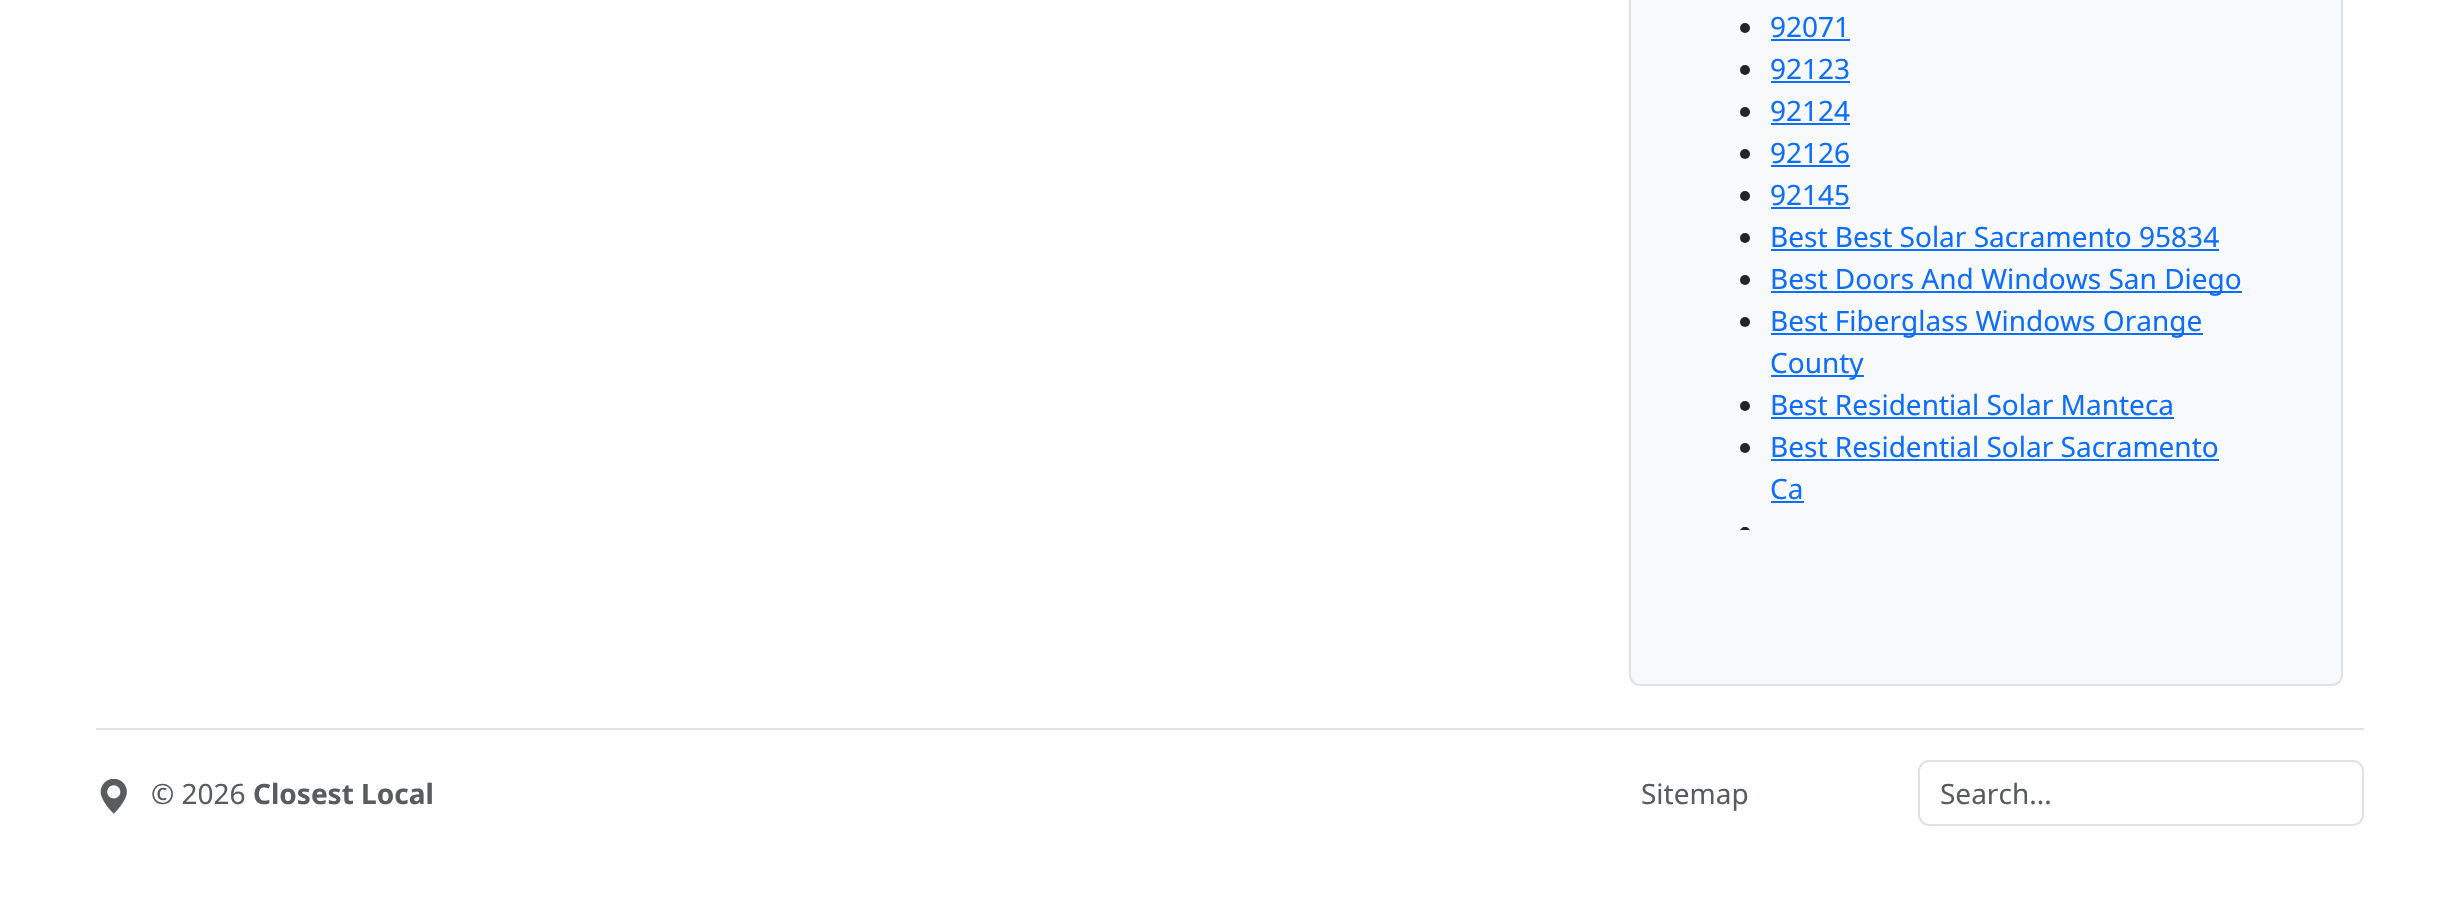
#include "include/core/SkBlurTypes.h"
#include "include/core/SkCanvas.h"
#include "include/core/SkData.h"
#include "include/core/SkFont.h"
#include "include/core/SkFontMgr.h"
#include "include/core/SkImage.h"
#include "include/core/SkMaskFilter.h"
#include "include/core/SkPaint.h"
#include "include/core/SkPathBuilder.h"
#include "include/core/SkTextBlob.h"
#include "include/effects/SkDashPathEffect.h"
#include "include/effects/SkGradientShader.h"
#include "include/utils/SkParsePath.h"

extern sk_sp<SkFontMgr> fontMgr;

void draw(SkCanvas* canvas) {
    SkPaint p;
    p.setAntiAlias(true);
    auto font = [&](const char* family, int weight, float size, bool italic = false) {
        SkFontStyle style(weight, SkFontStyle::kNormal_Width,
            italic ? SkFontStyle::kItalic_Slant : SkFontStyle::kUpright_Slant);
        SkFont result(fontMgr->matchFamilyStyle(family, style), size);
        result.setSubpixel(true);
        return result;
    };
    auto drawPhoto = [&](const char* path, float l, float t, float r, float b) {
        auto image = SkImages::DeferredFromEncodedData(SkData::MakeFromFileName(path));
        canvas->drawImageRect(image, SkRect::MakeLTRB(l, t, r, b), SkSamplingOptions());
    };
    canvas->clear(0xFFFFFFFF);
    p.setColor(0xFFF8F9FA);
    canvas->drawRoundRect(SkRect::MakeLTRB(1630, -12, 2342, 685), 10, 10, p);
    p.setStyle(SkPaint::kStroke_Style);
    p.setStrokeWidth(2);
    p.setColor(0xFFDEE2E6);
    canvas->drawRoundRect(SkRect::MakeLTRB(1630, -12, 2342, 685), 10, 10, p);
    p.setStyle(SkPaint::kFill_Style);
    p.setColor(0xFF212529);
    canvas->drawCircle(1745, 28, 5, p);
    auto font1 = font("Noto Sans", 400, 28);
    p.setColor(0xFF0D6EFD);
    canvas->drawString("92071", 1770, 37, font1, p);
    canvas->drawRect(SkRect::MakeLTRB(1771, 39, 1850, 41), p);
    p.setColor(0xFF212529);
    canvas->drawCircle(1745, 70, 5, p);
    p.setColor(0xFF0D6EFD);
    canvas->drawString("92123", 1770, 79, font1, p);
    canvas->drawRect(SkRect::MakeLTRB(1771, 81, 1850, 83), p);
    p.setColor(0xFF212529);
    canvas->drawCircle(1745, 112, 5, p);
    p.setColor(0xFF0D6EFD);
    canvas->drawString("92124", 1770, 121, font1, p);
    canvas->drawRect(SkRect::MakeLTRB(1771, 123, 1850, 125), p);
    p.setColor(0xFF212529);
    canvas->drawCircle(1745, 154, 5, p);
    p.setColor(0xFF0D6EFD);
    canvas->drawString("92126", 1770, 163, font1, p);
    canvas->drawRect(SkRect::MakeLTRB(1771, 165, 1850, 167), p);
    p.setColor(0xFF212529);
    canvas->drawCircle(1745, 196, 5, p);
    p.setColor(0xFF0D6EFD);
    canvas->drawString("92145", 1770, 205, font1, p);
    canvas->drawRect(SkRect::MakeLTRB(1771, 207, 1850, 209), p);
    p.setColor(0xFF212529);
    canvas->drawCircle(1745, 238, 5, p);
    p.setColor(0xFF0D6EFD);
    canvas->drawString("Best Best Solar Sacramento 95834", 1770, 247, font1, p);
    canvas->drawRect(SkRect::MakeLTRB(1771, 249, 2219, 251), p);
    p.setColor(0xFF212529);
    canvas->drawCircle(1745, 280, 5, p);
    p.setColor(0xFF0D6EFD);
    canvas->drawRect(SkRect::MakeLTRB(1771, 291, 2242, 293), p);
    canvas->drawString("Best Doors And Windows San Diego", 1770, 289, font1, p);
    p.setColor(0xFF212529);
    canvas->drawCircle(1745, 322, 5, p);
    p.setColor(0xFF0D6EFD);
    canvas->drawRect(SkRect::MakeLTRB(1771, 333, 2203, 335), p);
    canvas->drawString("Best Fiberglass Windows Orange", 1770, 331, font1, p);
    canvas->drawRect(SkRect::MakeLTRB(1771, 375, 1864, 377), p);
    canvas->drawString("County", 1770, 373, font1, p);
    p.setColor(0xFF212529);
    canvas->drawCircle(1745, 406, 5, p);
    p.setColor(0xFF0D6EFD);
    canvas->drawString("Best Residential Solar Manteca", 1770, 415, font1, p);
    canvas->drawRect(SkRect::MakeLTRB(1771, 417, 2174, 419), p);
    p.setColor(0xFF212529);
    canvas->drawCircle(1745, 448, 5, p);
    p.setColor(0xFF0D6EFD);
    canvas->drawString("Best Residential Solar Sacramento", 1770, 457, font1, p);
    canvas->drawRect(SkRect::MakeLTRB(1771, 459, 2219, 461), p);
    canvas->drawString("Ca", 1770, 499, font1, p);
    canvas->drawRect(SkRect::MakeLTRB(1771, 501, 1804, 503), p);
    p.setColor(0xFF212529);
    canvas->drawPath(SkPathBuilder().moveTo(1745, 527).cubicTo(1748, 527, 1750, 529, 1750, 532).lineTo(1750, 530).lineTo(1740, 530).lineTo(1740, 532).cubicTo(1740, 529, 1742, 527, 1745, 527).close().detach(), p);
    p.setColor(0xFFDEE2E6);
    canvas->drawRect(SkRect::MakeLTRB(96, 728, 2364, 730), p);
    drawPhoto("media/1.png", 100, 779, 127, 814);
    p.setColor(0xFF595C5F);
    canvas->drawString("© 2026", 151, 804, font1, p);
    auto font2 = font("Noto Sans", 700, 28);
    canvas->drawString("Closest Local", 253, 804, font2, p);
    canvas->drawString("Sitemap", 1641, 804, font1, p);
    p.setStyle(SkPaint::kStroke_Style);
    p.setColor(0xFFDEE2E6);
    canvas->drawRoundRect(SkRect::MakeLTRB(1919, 761, 2363, 825), 10, 10, p);
    p.setStyle(SkPaint::kFill_Style);
    p.setColor(0xFF595C5F);
    canvas->drawString("Search...", 1940, 804, font1, p);
}
